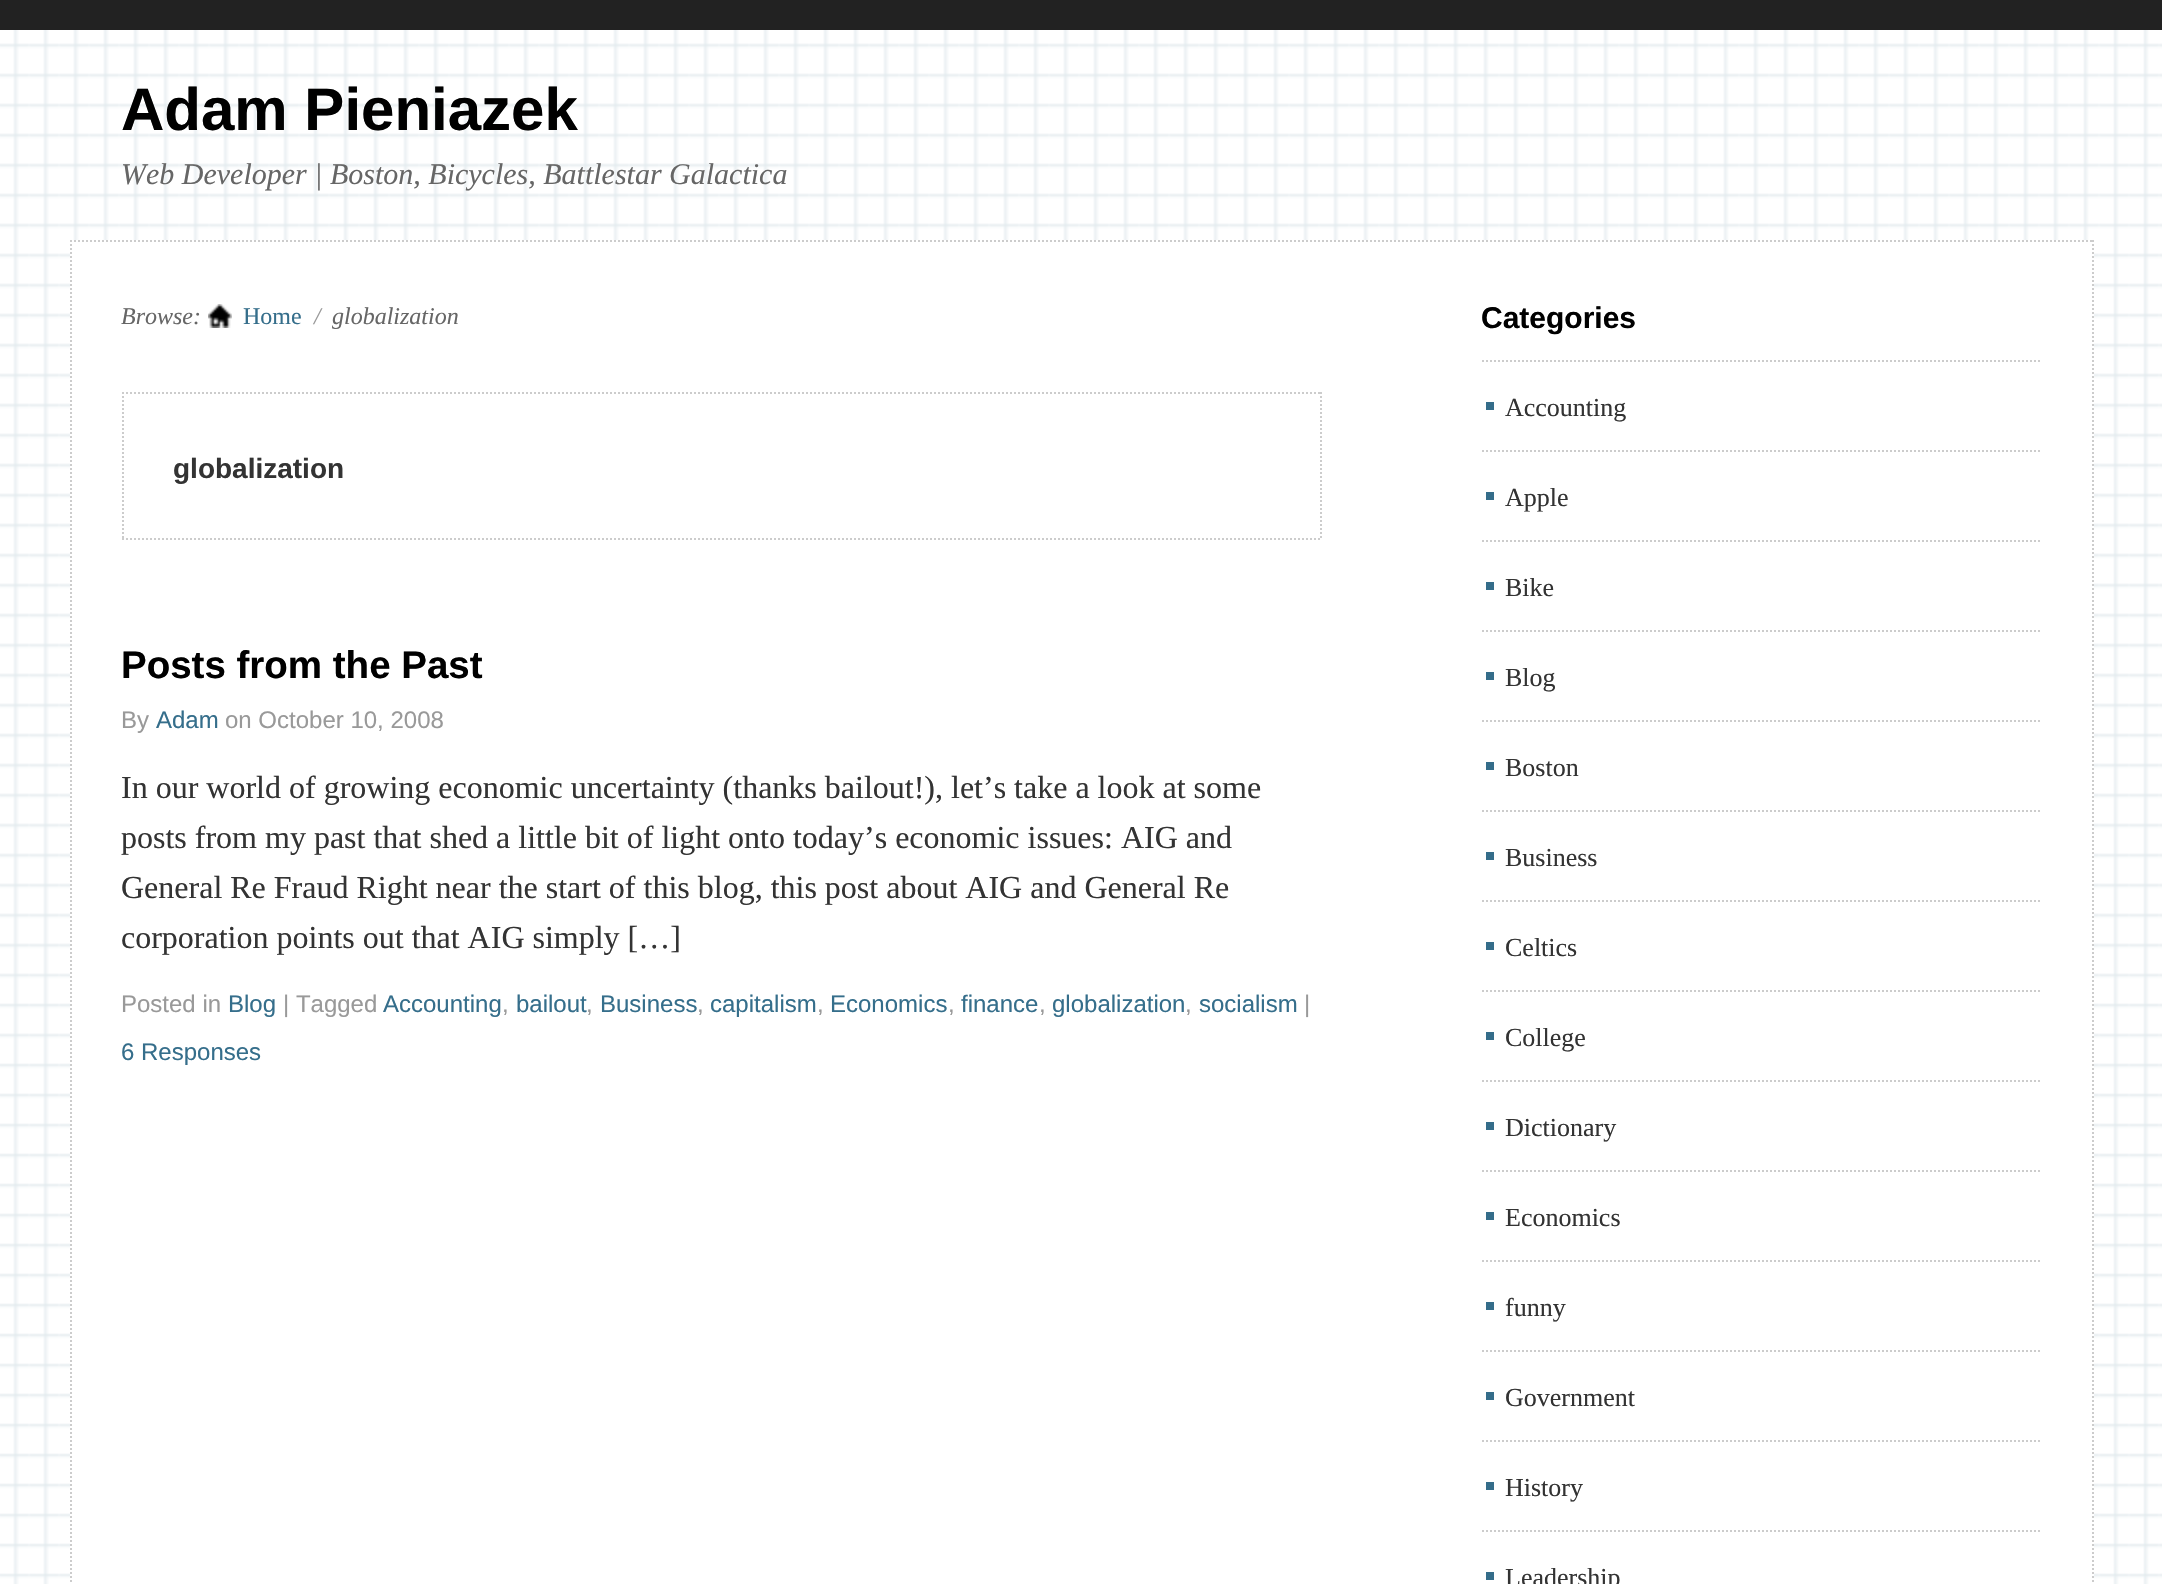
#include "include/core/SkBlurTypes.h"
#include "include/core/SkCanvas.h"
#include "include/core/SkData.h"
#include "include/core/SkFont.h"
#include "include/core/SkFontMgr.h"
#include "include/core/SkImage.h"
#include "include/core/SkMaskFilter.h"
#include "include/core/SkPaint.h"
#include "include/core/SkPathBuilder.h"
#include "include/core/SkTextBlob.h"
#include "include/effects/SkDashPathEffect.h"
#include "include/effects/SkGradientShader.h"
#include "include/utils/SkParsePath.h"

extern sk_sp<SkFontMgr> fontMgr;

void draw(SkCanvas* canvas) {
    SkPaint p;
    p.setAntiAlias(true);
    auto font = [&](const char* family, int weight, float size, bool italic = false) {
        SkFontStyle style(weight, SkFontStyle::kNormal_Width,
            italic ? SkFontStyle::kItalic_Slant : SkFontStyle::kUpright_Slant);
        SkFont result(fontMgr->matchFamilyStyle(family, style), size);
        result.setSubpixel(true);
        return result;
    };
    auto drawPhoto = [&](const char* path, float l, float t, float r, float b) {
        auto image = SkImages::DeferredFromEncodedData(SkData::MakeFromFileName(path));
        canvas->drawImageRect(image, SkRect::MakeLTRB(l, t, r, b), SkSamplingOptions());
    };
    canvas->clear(0xFFFFFFFF);
    drawPhoto("media/1.png", 0, 30, 2162, 1584);
    p.setColor(0xFF222222);
    canvas->drawRect(SkRect::MakeLTRB(0, 0, 2162, 30), p);
    auto font1 = font("Liberation Sans", 700, 60);
    p.setColor(0xFF000000);
    canvas->drawString("Adam Pieniazek", 121, 130, font1, p);
    auto font2 = font("Liberation Serif", 400, 30, true);
    p.setColor(0xFF666666);
    canvas->drawString("Web Developer | Boston, Bicycles, Battlestar Galactica", 121, 184, font2, p);
    p.setColor(0xFFFFFFFF);
    canvas->drawRect(SkRect::MakeLTRB(70, 240, 2094, 1584), p);
    p.setStyle(SkPaint::kStroke_Style);
    p.setStrokeWidth(2);
    p.setColor(0xFFCCCCCC);
    p.setPathEffect(SkDashPathEffect::Make({{2, 2}}, 0));
    canvas->drawPath(SkPathBuilder().moveTo(70, 241).lineTo(2094, 241).detach(), p);
    p.setPathEffect(nullptr);
    p.setPathEffect(SkDashPathEffect::Make({{2, 2}}, 0));
    canvas->drawPath(SkPathBuilder().moveTo(2093, 240).lineTo(2093, 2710).detach(), p);
    p.setPathEffect(nullptr);
    p.setPathEffect(SkDashPathEffect::Make({{2, 2}}, 0));
    canvas->drawPath(SkPathBuilder().moveTo(71, 240).lineTo(71, 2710).detach(), p);
    p.setPathEffect(nullptr);
    auto font3 = font("Liberation Serif", 400, 24, true);
    p.setStyle(SkPaint::kFill_Style);
    p.setColor(0xFF666666);
    canvas->drawString("Browse:", 121, 324, font3, p);
    drawPhoto("media/2.png", 208, 304, 232, 328);
    auto font4 = font("Liberation Serif", 400, 24);
    p.setColor(0xFF356E8B);
    canvas->drawString("Home", 243, 324, font4, p);
    p.setColor(0xFF999999);
    canvas->drawString("/", 314, 324, font3, p);
    p.setColor(0xFF666666);
    canvas->drawString("globalization", 332, 324, font3, p);
    p.setStyle(SkPaint::kStroke_Style);
    p.setColor(0xFFCCCCCC);
    p.setPathEffect(SkDashPathEffect::Make({{2, 2}}, 0));
    canvas->drawPath(SkPathBuilder().moveTo(122, 393).lineTo(1322, 393).detach(), p);
    p.setPathEffect(nullptr);
    p.setPathEffect(SkDashPathEffect::Make({{2, 2}}, 0));
    canvas->drawPath(SkPathBuilder().moveTo(1321, 392).lineTo(1321, 540).detach(), p);
    p.setPathEffect(nullptr);
    p.setPathEffect(SkDashPathEffect::Make({{2, 2}}, 0));
    canvas->drawPath(SkPathBuilder().moveTo(122, 539).lineTo(1322, 539).detach(), p);
    p.setPathEffect(nullptr);
    p.setPathEffect(SkDashPathEffect::Make({{2, 2}}, 0));
    canvas->drawPath(SkPathBuilder().moveTo(123, 392).lineTo(123, 540).detach(), p);
    p.setPathEffect(nullptr);
    auto font5 = font("Liberation Sans", 700, 28);
    p.setStyle(SkPaint::kFill_Style);
    p.setColor(0xFF333333);
    canvas->drawString("globalization", 173, 478, font5, p);
    auto font6 = font("Liberation Sans", 700, 38.5f);
    p.setColor(0xFF000000);
    canvas->drawString("Posts from the Past", 121, 678, font6, p);
    auto font7 = font("Liberation Sans", 400, 24);
    p.setColor(0xFF999999);
    canvas->drawString("By", 121, 728, font7, p);
    p.setColor(0xFF356E8B);
    canvas->drawString("Adam", 156, 728, font7, p);
    p.setColor(0xFF999999);
    canvas->drawString("on October 10, 2008", 225, 728, font7, p);
    auto font8 = font("Liberation Serif", 400, 32);
    p.setColor(0xFF333333);
    {
        const struct { const char* s; float x, y; } items[] = {
            {"In our world of growing economic uncertainty (thanks bailout!), let’s take a look at some", 121, 798},
            {"posts from my past that shed a little bit of light onto today’s economic issues: AIG and", 121, 848},
            {"General Re Fraud Right near the start of this blog, this post about AIG and General Re", 121, 898},
            {"corporation points out that AIG simply […]", 121, 948},
        };
        for (auto [s, x, y] : items) {
            canvas->drawString(s, x, y, font8, p);
        }
    }
    p.setColor(0xFF999999);
    canvas->drawString("Posted in", 121, 1012, font7, p);
    p.setColor(0xFF356E8B);
    canvas->drawString("Blog", 228, 1012, font7, p);
    p.setColor(0xFF999999);
    canvas->drawString("| Tagged", 283, 1012, font7, p);
    p.setColor(0xFF356E8B);
    canvas->drawString("Accounting", 383, 1012, font7, p);
    p.setColor(0xFF999999);
    canvas->drawString(",", 502, 1012, font7, p);
    p.setColor(0xFF356E8B);
    canvas->drawString("bailout", 516, 1012, font7, p);
    p.setColor(0xFF999999);
    canvas->drawString(",", 586, 1012, font7, p);
    p.setColor(0xFF356E8B);
    canvas->drawString("Business", 600, 1012, font7, p);
    p.setColor(0xFF999999);
    canvas->drawString(",", 697, 1012, font7, p);
    p.setColor(0xFF356E8B);
    canvas->drawString("capitalism", 710, 1012, font7, p);
    p.setColor(0xFF999999);
    canvas->drawString(",", 817, 1012, font7, p);
    p.setColor(0xFF356E8B);
    canvas->drawString("Economics", 830, 1012, font7, p);
    p.setColor(0xFF999999);
    canvas->drawString(",", 948, 1012, font7, p);
    p.setColor(0xFF356E8B);
    canvas->drawString("finance", 961, 1012, font7, p);
    p.setColor(0xFF999999);
    canvas->drawString(",", 1039, 1012, font7, p);
    p.setColor(0xFF356E8B);
    canvas->drawString("globalization", 1052, 1012, font7, p);
    p.setColor(0xFF999999);
    canvas->drawString(",", 1185, 1012, font7, p);
    p.setColor(0xFF356E8B);
    canvas->drawString("socialism", 1199, 1012, font7, p);
    p.setColor(0xFF999999);
    canvas->drawString("|", 1304, 1012, font7, p);
    p.setColor(0xFF356E8B);
    canvas->drawString("6 Responses", 121, 1060, font7, p);
    p.setStyle(SkPaint::kStroke_Style);
    p.setColor(0xFFCCCCCC);
    p.setPathEffect(SkDashPathEffect::Make({{2, 2}}, 0));
    canvas->drawPath(SkPathBuilder().moveTo(1482, 361).lineTo(2042, 361).detach(), p);
    p.setPathEffect(nullptr);
    auto font9 = font("Liberation Sans", 700, 30);
    p.setStyle(SkPaint::kFill_Style);
    p.setColor(0xFF000000);
    canvas->drawString("Categories", 1481, 328, font9, p);
    p.setColor(0xFF346D8A);
    canvas->drawRect(SkRect::MakeLTRB(1486, 402, 1494, 410), p);
    p.setStyle(SkPaint::kStroke_Style);
    p.setColor(0xFFCCCCCC);
    p.setPathEffect(SkDashPathEffect::Make({{2, 2}}, 0));
    canvas->drawPath(SkPathBuilder().moveTo(1482, 451).lineTo(2042, 451).detach(), p);
    p.setPathEffect(nullptr);
    auto font10 = font("Liberation Serif", 400, 26);
    p.setStyle(SkPaint::kFill_Style);
    p.setColor(0xFF333333);
    canvas->drawString("Accounting", 1505, 416, font10, p);
    p.setColor(0xFF346D8A);
    canvas->drawRect(SkRect::MakeLTRB(1486, 492, 1494, 500), p);
    p.setStyle(SkPaint::kStroke_Style);
    p.setColor(0xFFCCCCCC);
    p.setPathEffect(SkDashPathEffect::Make({{2, 2}}, 0));
    canvas->drawPath(SkPathBuilder().moveTo(1482, 541).lineTo(2042, 541).detach(), p);
    p.setPathEffect(nullptr);
    p.setStyle(SkPaint::kFill_Style);
    p.setColor(0xFF333333);
    canvas->drawString("Apple", 1505, 506, font10, p);
    p.setColor(0xFF346D8A);
    canvas->drawRect(SkRect::MakeLTRB(1486, 582, 1494, 590), p);
    p.setStyle(SkPaint::kStroke_Style);
    p.setColor(0xFFCCCCCC);
    p.setPathEffect(SkDashPathEffect::Make({{2, 2}}, 0));
    canvas->drawPath(SkPathBuilder().moveTo(1482, 631).lineTo(2042, 631).detach(), p);
    p.setPathEffect(nullptr);
    p.setStyle(SkPaint::kFill_Style);
    p.setColor(0xFF333333);
    canvas->drawString("Bike", 1505, 596, font10, p);
    p.setColor(0xFF346D8A);
    canvas->drawRect(SkRect::MakeLTRB(1486, 672, 1494, 680), p);
    p.setStyle(SkPaint::kStroke_Style);
    p.setColor(0xFFCCCCCC);
    p.setPathEffect(SkDashPathEffect::Make({{2, 2}}, 0));
    canvas->drawPath(SkPathBuilder().moveTo(1482, 721).lineTo(2042, 721).detach(), p);
    p.setPathEffect(nullptr);
    p.setStyle(SkPaint::kFill_Style);
    p.setColor(0xFF333333);
    canvas->drawString("Blog", 1505, 686, font10, p);
    p.setColor(0xFF346D8A);
    canvas->drawRect(SkRect::MakeLTRB(1486, 762, 1494, 770), p);
    p.setStyle(SkPaint::kStroke_Style);
    p.setColor(0xFFCCCCCC);
    p.setPathEffect(SkDashPathEffect::Make({{2, 2}}, 0));
    canvas->drawPath(SkPathBuilder().moveTo(1482, 811).lineTo(2042, 811).detach(), p);
    p.setPathEffect(nullptr);
    p.setStyle(SkPaint::kFill_Style);
    p.setColor(0xFF333333);
    canvas->drawString("Boston", 1505, 776, font10, p);
    p.setColor(0xFF346D8A);
    canvas->drawRect(SkRect::MakeLTRB(1486, 852, 1494, 860), p);
    p.setStyle(SkPaint::kStroke_Style);
    p.setColor(0xFFCCCCCC);
    p.setPathEffect(SkDashPathEffect::Make({{2, 2}}, 0));
    canvas->drawPath(SkPathBuilder().moveTo(1482, 901).lineTo(2042, 901).detach(), p);
    p.setPathEffect(nullptr);
    p.setStyle(SkPaint::kFill_Style);
    p.setColor(0xFF333333);
    canvas->drawString("Business", 1505, 866, font10, p);
    p.setColor(0xFF346D8A);
    canvas->drawRect(SkRect::MakeLTRB(1486, 942, 1494, 950), p);
    p.setStyle(SkPaint::kStroke_Style);
    p.setColor(0xFFCCCCCC);
    p.setPathEffect(SkDashPathEffect::Make({{2, 2}}, 0));
    canvas->drawPath(SkPathBuilder().moveTo(1482, 991).lineTo(2042, 991).detach(), p);
    p.setPathEffect(nullptr);
    p.setStyle(SkPaint::kFill_Style);
    p.setColor(0xFF333333);
    canvas->drawString("Celtics", 1505, 956, font10, p);
    p.setColor(0xFF346D8A);
    canvas->drawRect(SkRect::MakeLTRB(1486, 1032, 1494, 1040), p);
    p.setStyle(SkPaint::kStroke_Style);
    p.setColor(0xFFCCCCCC);
    p.setPathEffect(SkDashPathEffect::Make({{2, 2}}, 0));
    canvas->drawPath(SkPathBuilder().moveTo(1482, 1081).lineTo(2042, 1081).detach(), p);
    p.setPathEffect(nullptr);
    p.setStyle(SkPaint::kFill_Style);
    p.setColor(0xFF333333);
    canvas->drawString("College", 1505, 1046, font10, p);
    p.setColor(0xFF346D8A);
    canvas->drawRect(SkRect::MakeLTRB(1486, 1122, 1494, 1130), p);
    p.setStyle(SkPaint::kStroke_Style);
    p.setColor(0xFFCCCCCC);
    p.setPathEffect(SkDashPathEffect::Make({{2, 2}}, 0));
    canvas->drawPath(SkPathBuilder().moveTo(1482, 1171).lineTo(2042, 1171).detach(), p);
    p.setPathEffect(nullptr);
    p.setStyle(SkPaint::kFill_Style);
    p.setColor(0xFF333333);
    canvas->drawString("Dictionary", 1505, 1136, font10, p);
    p.setColor(0xFF346D8A);
    canvas->drawRect(SkRect::MakeLTRB(1486, 1212, 1494, 1220), p);
    p.setStyle(SkPaint::kStroke_Style);
    p.setColor(0xFFCCCCCC);
    p.setPathEffect(SkDashPathEffect::Make({{2, 2}}, 0));
    canvas->drawPath(SkPathBuilder().moveTo(1482, 1261).lineTo(2042, 1261).detach(), p);
    p.setPathEffect(nullptr);
    p.setStyle(SkPaint::kFill_Style);
    p.setColor(0xFF333333);
    canvas->drawString("Economics", 1505, 1226, font10, p);
    p.setColor(0xFF346D8A);
    canvas->drawRect(SkRect::MakeLTRB(1486, 1302, 1494, 1310), p);
    p.setStyle(SkPaint::kStroke_Style);
    p.setColor(0xFFCCCCCC);
    p.setPathEffect(SkDashPathEffect::Make({{2, 2}}, 0));
    canvas->drawPath(SkPathBuilder().moveTo(1482, 1351).lineTo(2042, 1351).detach(), p);
    p.setPathEffect(nullptr);
    p.setStyle(SkPaint::kFill_Style);
    p.setColor(0xFF333333);
    canvas->drawString("funny", 1505, 1316, font10, p);
    p.setColor(0xFF346D8A);
    canvas->drawRect(SkRect::MakeLTRB(1486, 1392, 1494, 1400), p);
    p.setStyle(SkPaint::kStroke_Style);
    p.setColor(0xFFCCCCCC);
    p.setPathEffect(SkDashPathEffect::Make({{2, 2}}, 0));
    canvas->drawPath(SkPathBuilder().moveTo(1482, 1441).lineTo(2042, 1441).detach(), p);
    p.setPathEffect(nullptr);
    p.setStyle(SkPaint::kFill_Style);
    p.setColor(0xFF333333);
    canvas->drawString("Government", 1505, 1406, font10, p);
    p.setColor(0xFF346D8A);
    canvas->drawRect(SkRect::MakeLTRB(1486, 1482, 1494, 1490), p);
    p.setStyle(SkPaint::kStroke_Style);
    p.setColor(0xFFCCCCCC);
    p.setPathEffect(SkDashPathEffect::Make({{2, 2}}, 0));
    canvas->drawPath(SkPathBuilder().moveTo(1482, 1531).lineTo(2042, 1531).detach(), p);
    p.setPathEffect(nullptr);
    p.setStyle(SkPaint::kFill_Style);
    p.setColor(0xFF333333);
    canvas->drawString("History", 1505, 1496, font10, p);
    p.setColor(0xFF346D8A);
    canvas->drawRect(SkRect::MakeLTRB(1486, 1572, 1494, 1580), p);
    p.setColor(0xFF333333);
    canvas->drawString("Leadership", 1505, 1586, font10, p);
}
